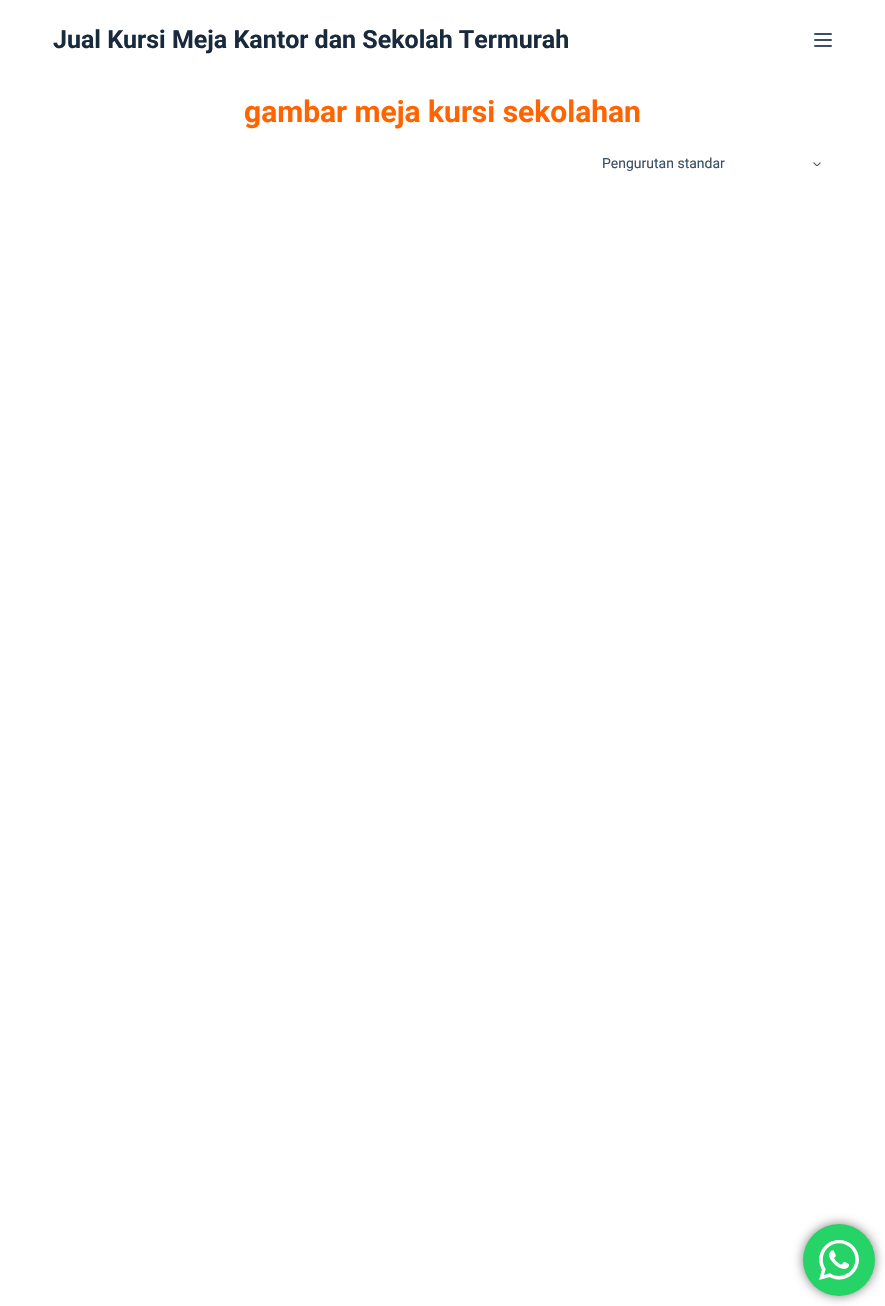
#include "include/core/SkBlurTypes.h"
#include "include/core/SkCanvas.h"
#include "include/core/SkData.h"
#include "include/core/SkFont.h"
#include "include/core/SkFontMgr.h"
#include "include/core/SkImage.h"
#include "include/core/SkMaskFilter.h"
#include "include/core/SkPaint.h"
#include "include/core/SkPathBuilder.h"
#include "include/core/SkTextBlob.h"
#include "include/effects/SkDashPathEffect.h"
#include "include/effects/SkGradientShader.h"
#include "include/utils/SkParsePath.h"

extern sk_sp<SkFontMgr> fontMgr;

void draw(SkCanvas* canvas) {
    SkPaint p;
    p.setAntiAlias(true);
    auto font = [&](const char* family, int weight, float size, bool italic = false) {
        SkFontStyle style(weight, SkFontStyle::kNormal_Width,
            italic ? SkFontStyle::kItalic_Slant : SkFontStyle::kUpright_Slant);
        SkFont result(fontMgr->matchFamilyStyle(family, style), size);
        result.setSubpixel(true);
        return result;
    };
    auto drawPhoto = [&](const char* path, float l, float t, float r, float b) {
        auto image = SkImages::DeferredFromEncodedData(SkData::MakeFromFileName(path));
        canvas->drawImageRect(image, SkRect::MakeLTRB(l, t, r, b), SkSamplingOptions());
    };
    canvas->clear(0xFFFFFFFF);
    auto font1 = font("Roboto", 700, 25);
    p.setColor(0xFF192A3D);
    canvas->drawString("Jual Kursi Meja Kantor dan Sekolah Termurah", 53, 48, font1, p);
    p.setColor(0xFF3A4F66);
    canvas->drawRoundRect(SkRect::MakeLTRB(814, 33, 832, 35), 1, 1, p);
    canvas->drawRoundRect(SkRect::MakeLTRB(814, 39, 832, 41), 1, 1, p);
    canvas->drawRoundRect(SkRect::MakeLTRB(814, 45, 832, 47), 1, 1, p);
    auto font2 = font("Roboto", 700, 30);
    p.setColor(0xFFFF6400);
    canvas->drawString("gambar meja kursi sekolahan", 244, 122, font2, p);
    drawPhoto("media/1.png", 813, 162, 821, 166);
    auto font3 = font("Roboto", 400, 14);
    p.setColor(0xFF3A4F66);
    canvas->drawString("Pengurutan standar", 602, 168, font3, p);
    p.setColor(0x80000000);
    p.setMaskFilter(SkMaskFilter::MakeBlur(kNormal_SkBlurStyle, 5.5f));
    canvas->drawRoundRect(SkRect::MakeLTRB(803, 1224, 875, 1296), 36, 36, p);
    p.setMaskFilter(nullptr);
    p.setColor(0xFF25D366);
    canvas->drawCircle(839, 1260, 36, p);
    drawPhoto("media/2.png", 819, 1240, 859, 1280);
}
